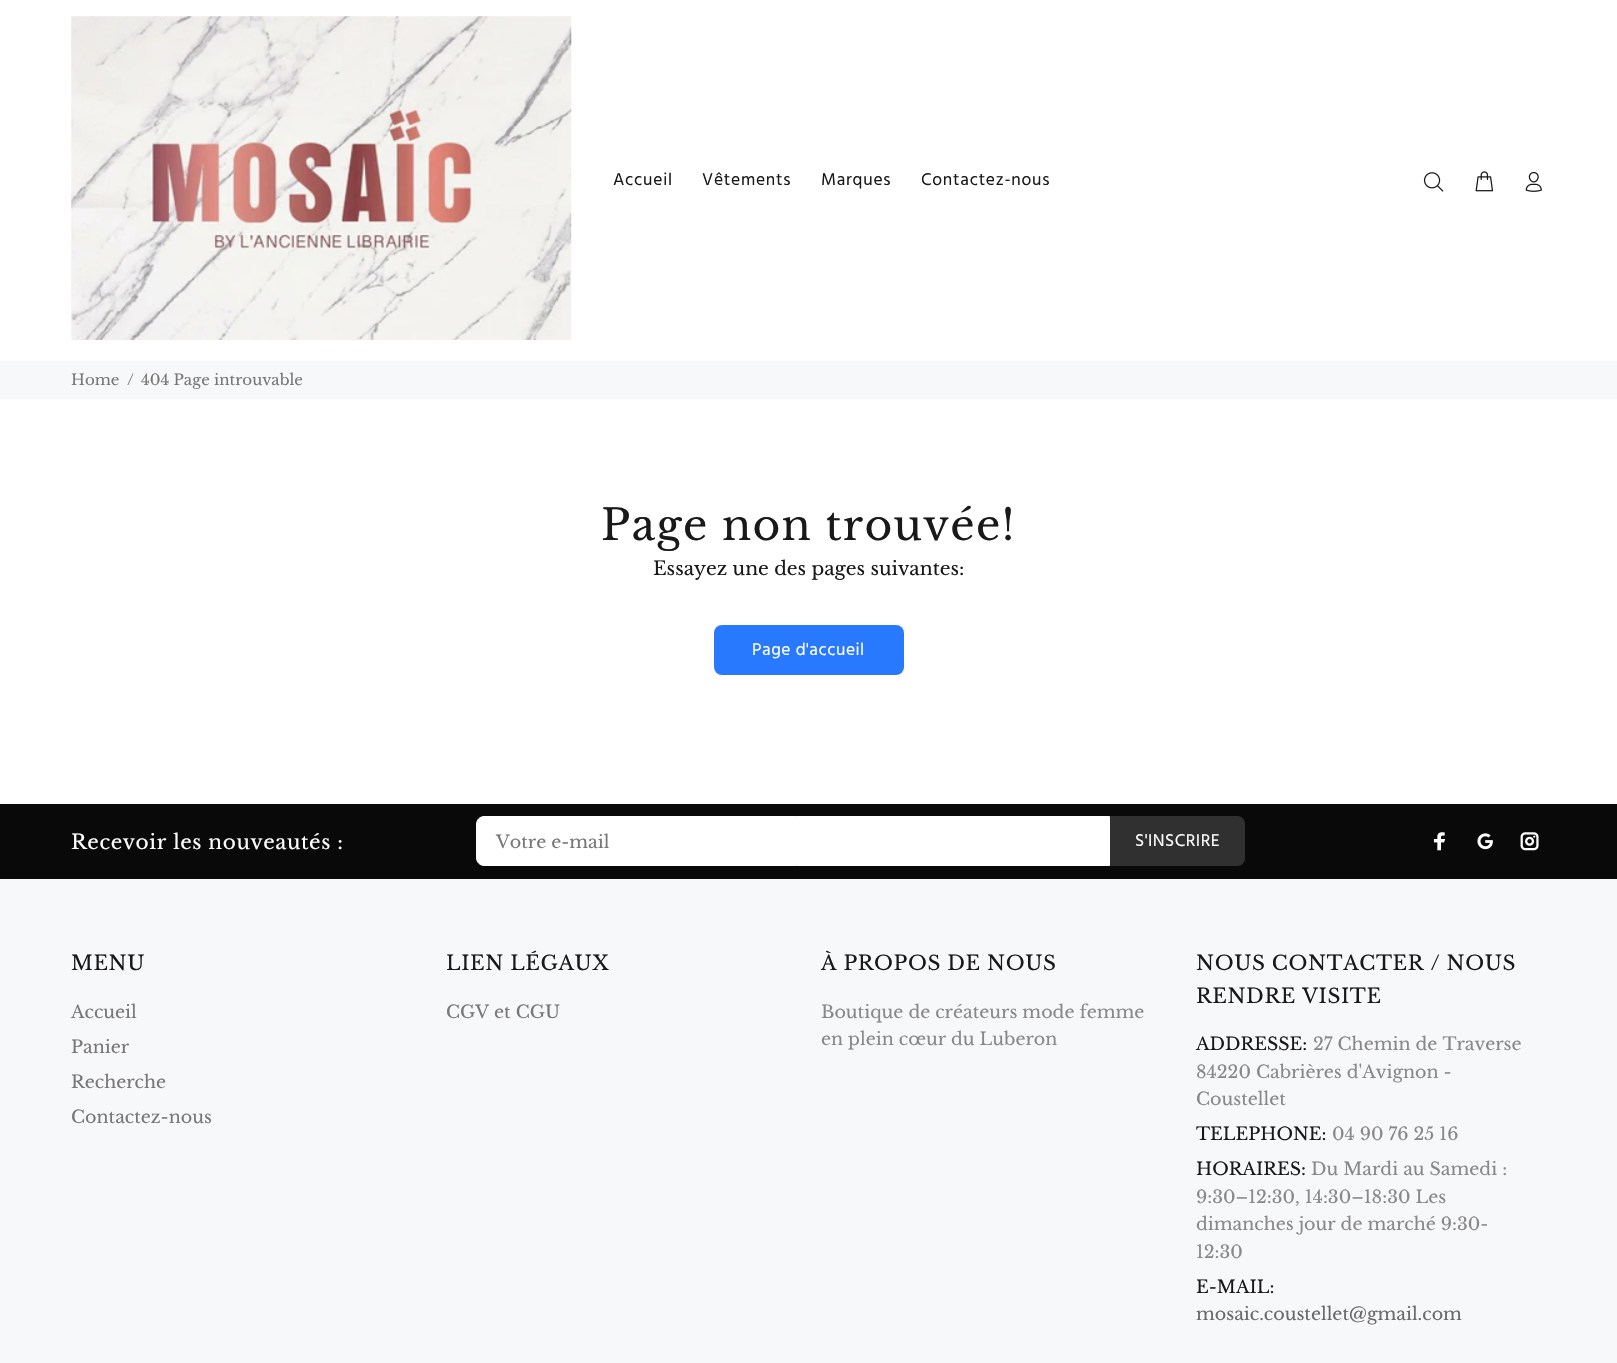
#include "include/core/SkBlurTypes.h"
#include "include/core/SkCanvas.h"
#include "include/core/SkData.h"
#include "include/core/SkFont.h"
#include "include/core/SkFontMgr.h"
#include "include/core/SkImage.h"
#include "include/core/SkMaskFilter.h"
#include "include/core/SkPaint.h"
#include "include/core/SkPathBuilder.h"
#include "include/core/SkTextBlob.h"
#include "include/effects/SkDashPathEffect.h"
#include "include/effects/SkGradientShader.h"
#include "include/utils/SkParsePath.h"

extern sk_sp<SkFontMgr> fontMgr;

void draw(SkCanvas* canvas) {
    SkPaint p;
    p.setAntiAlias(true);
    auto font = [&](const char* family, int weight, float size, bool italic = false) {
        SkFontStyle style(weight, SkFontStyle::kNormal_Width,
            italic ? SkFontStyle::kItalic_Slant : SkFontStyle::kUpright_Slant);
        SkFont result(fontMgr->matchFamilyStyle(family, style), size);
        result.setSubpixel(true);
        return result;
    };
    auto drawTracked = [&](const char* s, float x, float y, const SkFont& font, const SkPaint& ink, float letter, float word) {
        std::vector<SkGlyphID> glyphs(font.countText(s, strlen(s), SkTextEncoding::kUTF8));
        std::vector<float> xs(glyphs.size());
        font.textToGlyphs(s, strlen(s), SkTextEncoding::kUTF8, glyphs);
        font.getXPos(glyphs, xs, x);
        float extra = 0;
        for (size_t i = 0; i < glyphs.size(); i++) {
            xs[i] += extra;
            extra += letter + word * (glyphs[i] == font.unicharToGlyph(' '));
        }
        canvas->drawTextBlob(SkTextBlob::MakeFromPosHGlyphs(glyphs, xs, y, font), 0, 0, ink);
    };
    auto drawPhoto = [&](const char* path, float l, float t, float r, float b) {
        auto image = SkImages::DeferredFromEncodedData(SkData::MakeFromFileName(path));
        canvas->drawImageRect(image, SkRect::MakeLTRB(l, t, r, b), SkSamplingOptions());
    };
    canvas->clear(0xFFFFFFFF);
    drawPhoto("media/1.png", 71, 16, 572, 340);
    auto font1 = font("Hind", 400, 17.5f);
    p.setColor(0xFF191919);
    {
        const struct { const char* s; float x, y; } items[] = {
            {"Accueil", 613, 185},
            {"Vêtements", 702, 185},
            {"Marques", 821, 185},
            {"Contactez-nous", 921, 185},
        };
        for (auto [s, x, y] : items) {
            drawTracked(s, x, y, font1, p, 0.75f, 0);
        }
    }
    drawPhoto("media/2.png", 1423, 172, 1444, 192);
    drawPhoto("media/3.png", 1475, 171, 1494, 192);
    drawPhoto("media/4.png", 1525, 171, 1542, 192);
    p.setColor(0xFFF7F8FA);
    canvas->drawRect(SkRect::MakeLTRB(0, 361, 1617, 399), p);
    auto font2 = font("Libre Baskerville", 400, 15);
    p.setColor(0xFF777777);
    {
        const struct { const char* s; float x, y; } items[] = {
            {"Home", 71, 385},
            {"/", 127, 385},
            {"404 Page introuvable", 141, 385},
        };
        for (auto [s, x, y] : items) {
            canvas->drawString(s, x, y, font2, p);
        }
    }
    auto font3 = font("Libre Baskerville", 400, 42.5f);
    p.setColor(0xFF191919);
    drawTracked("Page non trouvée!", 601, 540, font3, p, 1.25f, 0);
    auto font4 = font("Libre Baskerville", 400, 18.75f);
    canvas->drawString("Essayez une des pages suivantes:", 653, 575, font4, p);
    p.setColor(0xFF2879FE);
    canvas->drawRoundRect(SkRect::MakeLTRB(714, 625, 904, 675), 8, 8, p);
    p.setColor(0xFFFFFFFF);
    drawTracked("Page d'accueil", 752, 655, font1, p, 0.5f, 0);
    p.setColor(0xFFF7F8FA);
    canvas->drawRect(SkRect::MakeLTRB(0, 879, 1617, 1363), p);
    p.setColor(0xFF09090A);
    canvas->drawRect(SkRect::MakeLTRB(0, 804, 1617, 879), p);
    auto font5 = font("Libre Baskerville", 400, 20);
    p.setColor(0xFFFFFFFF);
    drawTracked("Recevoir les nouveautés :", 71, 849, font5, p, 0.6f, 0);
    canvas->drawPath(SkPathBuilder().moveTo(484, 816.5f).lineTo(1109.5f, 816.5f).lineTo(1109.5f, 865.5f).lineTo(484, 865.5f).cubicTo(480, 865.5f, 476.5f, 862, 476.5f, 858).lineTo(476.5f, 824).cubicTo(476.5f, 820, 480, 816.5f, 484, 816.5f).close().detach(), p);
    p.setStyle(SkPaint::kStroke_Style);
    p.setStrokeWidth(1);
    canvas->drawPath(SkPathBuilder().moveTo(484, 816.5f).lineTo(1109.5f, 816.5f).lineTo(1109.5f, 865.5f).lineTo(484, 865.5f).cubicTo(480, 865.5f, 476.5f, 862, 476.5f, 858).lineTo(476.5f, 824).cubicTo(476.5f, 820, 480, 816.5f, 484, 816.5f).close().detach(), p);
    auto font6 = font("Libre Baskerville", 400, 17.5f);
    p.setStyle(SkPaint::kFill_Style);
    p.setColor(0xFF777777);
    canvas->drawString("Votre e-mail", 496, 848, font6, p);
    p.setColor(0xFF303030);
    canvas->drawPath(SkPathBuilder().moveTo(1110, 816).lineTo(1237, 816).cubicTo(1241.5f, 816, 1245, 819.5f, 1245, 824).lineTo(1245, 858).cubicTo(1245, 862.5f, 1241.5f, 866, 1237, 866).lineTo(1110, 866).close().detach(), p);
    p.setColor(0xFFFFFFFF);
    drawTracked("S'INSCRIRE", 1135, 846, font1, p, 0.5f, 0);
    drawPhoto("media/5.png", 1433, 832, 1446, 851);
    drawPhoto("media/6.png", 1477, 833, 1493, 850);
    drawPhoto("media/7.png", 1520, 832, 1539, 851);
    p.setColor(0xFF191919);
    drawTracked("MENU", 71, 970, font5, p, 0.6f, 0);
    p.setColor(0xFF777777);
    {
        const struct { const char* s; float x, y; } items[] = {
            {"Accueil", 71, 1018},
            {"Panier", 71, 1053},
            {"Recherche", 71, 1088},
            {"Contactez-nous", 71, 1123},
        };
        for (auto [s, x, y] : items) {
            canvas->drawString(s, x, y, font6, p);
        }
    }
    p.setColor(0xFF191919);
    drawTracked("LIEN LÉGAUX", 446, 970, font5, p, 0.6f, 0);
    p.setColor(0xFF777777);
    canvas->drawString("CGV et CGU", 446, 1018, font6, p);
    p.setColor(0xFF191919);
    drawTracked("À PROPOS DE NOUS", 821, 970, font5, p, 0.6f, 0);
    p.setColor(0xFF888888);
    canvas->drawString("Boutique de créateurs mode femme", 821, 1018, font6, p);
    canvas->drawString("en plein cœur du Luberon", 821, 1045, font6, p);
    p.setColor(0xFF191919);
    drawTracked("NOUS CONTACTER / NOUS", 1196, 970, font5, p, 0.6f, 0);
    drawTracked("RENDRE VISITE", 1196, 1003, font5, p, 0.6f, 0);
    canvas->drawString("ADDRESSE:", 1196, 1050, font6, p);
    p.setColor(0xFF888888);
    {
        const struct { const char* s; float x, y; } items[] = {
            {"27 Chemin de Traverse", 1313, 1050},
            {"84220 Cabrières d'Avignon -", 1196, 1078},
            {"Coustellet", 1196, 1105},
        };
        for (auto [s, x, y] : items) {
            canvas->drawString(s, x, y, font6, p);
        }
    }
    p.setColor(0xFF191919);
    canvas->drawString("TELEPHONE:", 1196, 1140, font6, p);
    p.setColor(0xFF888888);
    canvas->drawString("04 90 76 25 16", 1332, 1140, font6, p);
    p.setColor(0xFF191919);
    canvas->drawString("HORAIRES:", 1196, 1175, font6, p);
    p.setColor(0xFF888888);
    {
        const struct { const char* s; float x, y; } items[] = {
            {"Du Mardi au Samedi :", 1311, 1175},
            {"9:30–12:30, 14:30–18:30 Les", 1196, 1203},
            {"dimanches jour de marché 9:30-", 1196, 1230},
            {"12:30", 1196, 1258},
        };
        for (auto [s, x, y] : items) {
            canvas->drawString(s, x, y, font6, p);
        }
    }
    p.setColor(0xFF191919);
    canvas->drawString("E-MAIL:", 1196, 1293, font6, p);
    p.setColor(0xFF696969);
    canvas->drawString("mosaic.coustellet@gmail.com", 1196, 1320, font6, p);
}
